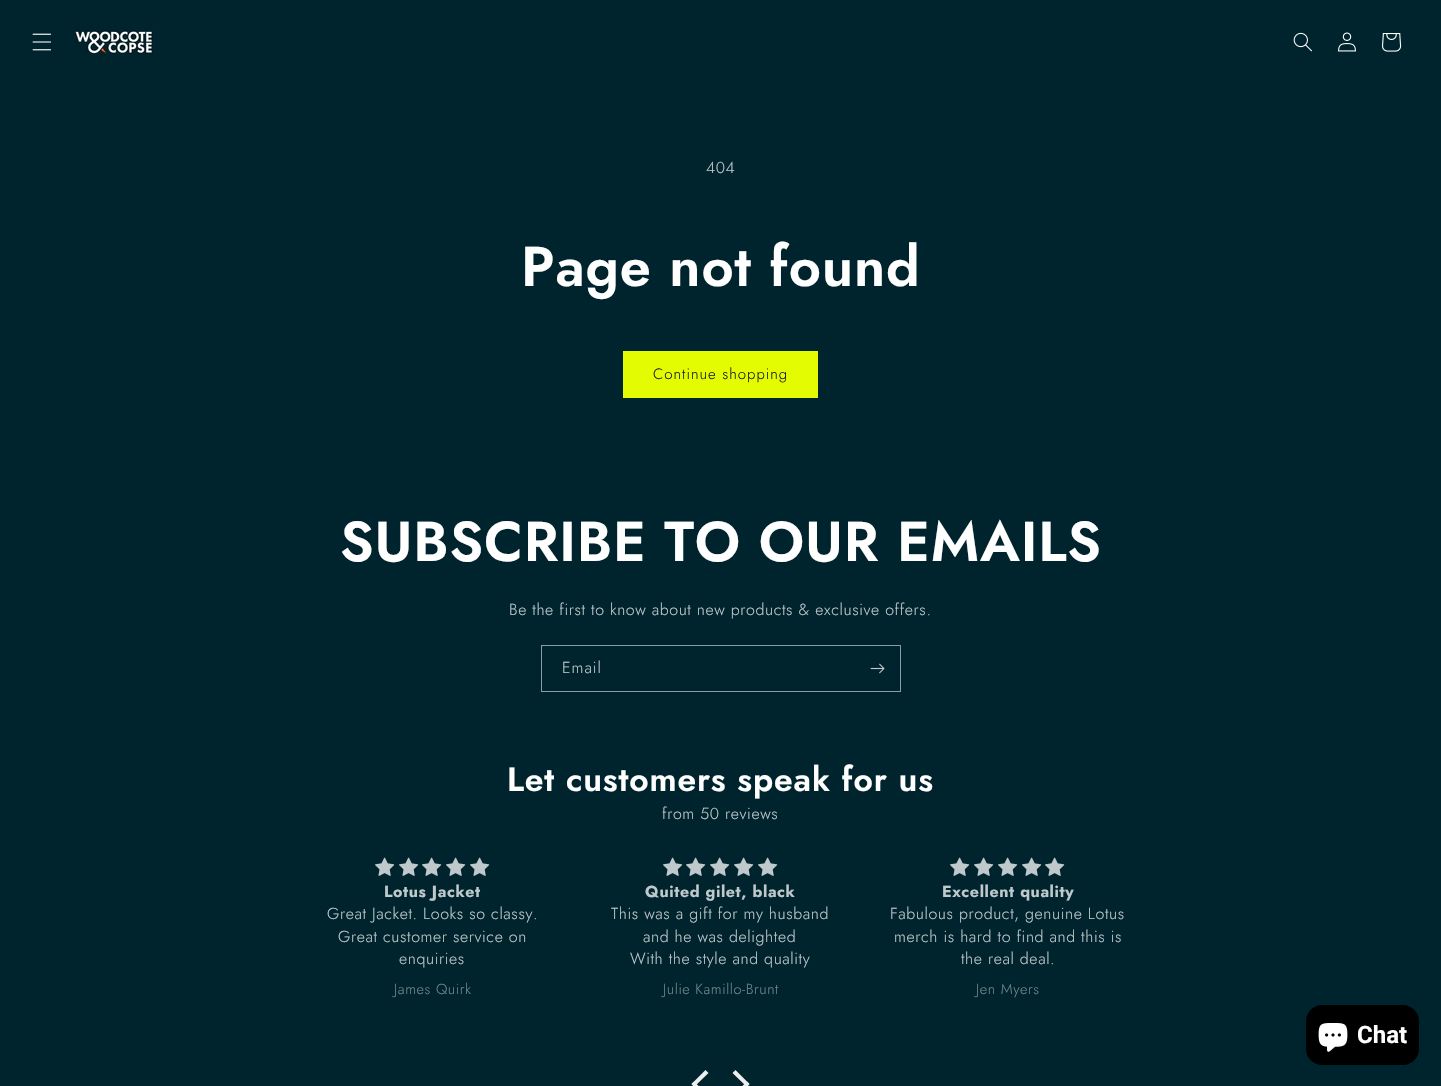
#include "include/core/SkBlurTypes.h"
#include "include/core/SkCanvas.h"
#include "include/core/SkData.h"
#include "include/core/SkFont.h"
#include "include/core/SkFontMgr.h"
#include "include/core/SkImage.h"
#include "include/core/SkMaskFilter.h"
#include "include/core/SkPaint.h"
#include "include/core/SkPathBuilder.h"
#include "include/core/SkTextBlob.h"
#include "include/effects/SkDashPathEffect.h"
#include "include/effects/SkGradientShader.h"
#include "include/utils/SkParsePath.h"

extern sk_sp<SkFontMgr> fontMgr;

void draw(SkCanvas* canvas) {
    SkPaint p;
    p.setAntiAlias(true);
    auto font = [&](const char* family, int weight, float size, bool italic = false) {
        SkFontStyle style(weight, SkFontStyle::kNormal_Width,
            italic ? SkFontStyle::kItalic_Slant : SkFontStyle::kUpright_Slant);
        SkFont result(fontMgr->matchFamilyStyle(family, style), size);
        result.setSubpixel(true);
        return result;
    };
    auto drawTracked = [&](const char* s, float x, float y, const SkFont& font, const SkPaint& ink, float letter, float word) {
        std::vector<SkGlyphID> glyphs(font.countText(s, strlen(s), SkTextEncoding::kUTF8));
        std::vector<float> xs(glyphs.size());
        font.textToGlyphs(s, strlen(s), SkTextEncoding::kUTF8, glyphs);
        font.getXPos(glyphs, xs, x);
        float extra = 0;
        for (size_t i = 0; i < glyphs.size(); i++) {
            xs[i] += extra;
            extra += letter + word * (glyphs[i] == font.unicharToGlyph(' '));
        }
        canvas->drawTextBlob(SkTextBlob::MakeFromPosHGlyphs(glyphs, xs, y, font), 0, 0, ink);
    };
    auto drawPhoto = [&](const char* path, float l, float t, float r, float b) {
        auto image = SkImages::DeferredFromEncodedData(SkData::MakeFromFileName(path));
        canvas->drawImageRect(image, SkRect::MakeLTRB(l, t, r, b), SkSamplingOptions());
    };
    canvas->clear(0xFF00242D);
    drawPhoto("media/1.png", 32, 33, 52, 51);
    drawPhoto("media/2.png", 74, 30, 154, 55);
    drawPhoto("media/3.png", 1293, 32, 1312, 52);
    drawPhoto("media/4.png", 1338, 32, 1356, 52);
    drawPhoto("media/5.png", 1382, 33, 1402, 52);
    auto font1 = font("Jost", 300, 16);
    p.setColor(0xFFBFC8CB);
    drawTracked("404", 706, 173, font1, p, 0.6f, 0);
    auto font2 = font("Jost", 600, 56);
    p.setColor(0xFFFFFFFF);
    drawTracked("Page not found", 521, 286, font2, p, 0.85f, 0);
    p.setColor(0xFFE3FC02);
    canvas->drawRect(SkRect::MakeLTRB(623, 351, 818, 398), p);
    auto font3 = font("Jost", 300, 15);
    p.setColor(0xFF1F1F21);
    drawTracked("Continue shopping", 653, 379, font3, p, 1, 0);
    p.setColor(0xFFFFFFFF);
    drawTracked("SUBSCRIBE TO OUR EMAILS", 340, 561, font2, p, 0.85f, 0);
    p.setColor(0xFFBFC8CB);
    drawTracked("Be the first to know about new products & exclusive offers.", 509, 615, font1, p, 0.6f, 0);
    p.setStyle(SkPaint::kStroke_Style);
    p.setStrokeWidth(1);
    p.setColor(0xFF8C9CA1);
    canvas->drawRect(SkRect::MakeLTRB(541.5f, 645.5f, 900.5f, 691.5f), p);
    p.setStyle(SkPaint::kFill_Style);
    p.setColor(0xFFBFC8CB);
    drawTracked("Email", 562, 673, font1, p, 1, 0);
    drawPhoto("media/6.png", 870, 663, 885, 674);
    auto font4 = font("Jost", 600, 33.6f);
    p.setColor(0xFFFFFFFF);
    drawTracked("Let customers speak for us", 507, 791, font4, p, 0.85f, 0);
    p.setColor(0xFFBFC8CB);
    drawTracked("from 50 reviews", 662, 819, font1, p, 0.6f, 0);
    drawPhoto("media/7.png", 375, 857, 395, 876);
    drawPhoto("media/7.png", 399, 857, 419, 876);
    drawPhoto("media/7.png", 422, 857, 442, 876);
    drawPhoto("media/7.png", 446, 857, 466, 876);
    drawPhoto("media/7.png", 470, 857, 490, 876);
    auto font5 = font("Jost", 700, 16);
    drawTracked("Lotus Jacket", 384, 897, font5, p, 0.6f, 0);
    {
        const struct { const char* s; float x, y; } items[] = {
            {"Great Jacket. Looks so classy.", 327, 919},
            {"Great customer service on", 338, 942},
            {"enquiries", 399, 964},
        };
        for (auto [s, x, y] : items) {
            drawTracked(s, x, y, font1, p, 0.6f, 0);
        }
    }
    auto font6 = font("Jost", 300, 14.5f);
    p.setColor(0xFF73868C);
    drawTracked("James Quirk", 394, 994, font6, p, 0.6f, 0);
    drawPhoto("media/7.png", 663, 857, 683, 876);
    drawPhoto("media/7.png", 686, 857, 706, 876);
    drawPhoto("media/7.png", 710, 857, 730, 876);
    drawPhoto("media/7.png", 734, 857, 754, 876);
    drawPhoto("media/7.png", 758, 857, 778, 876);
    p.setColor(0xFFBFC8CB);
    drawTracked("Quited gilet, black", 645, 897, font5, p, 0.6f, 0);
    {
        const struct { const char* s; float x, y; } items[] = {
            {"This was a gift for my husband", 611, 919},
            {"and he was delighted", 643, 942},
            {"With the style and quality", 630, 964},
        };
        for (auto [s, x, y] : items) {
            drawTracked(s, x, y, font1, p, 0.6f, 0);
        }
    }
    p.setColor(0xFF73868C);
    drawTracked("Julie Kamillo-Brunt", 663, 994, font6, p, 0.6f, 0);
    drawPhoto("media/7.png", 950, 857, 970, 876);
    drawPhoto("media/7.png", 974, 857, 994, 876);
    drawPhoto("media/7.png", 998, 857, 1018, 876);
    drawPhoto("media/7.png", 1022, 857, 1042, 876);
    drawPhoto("media/7.png", 1045, 857, 1065, 876);
    p.setColor(0xFFBFC8CB);
    drawTracked("Excellent quality", 942, 897, font5, p, 0.6f, 0);
    {
        const struct { const char* s; float x, y; } items[] = {
            {"Fabulous product, genuine Lotus", 890, 919},
            {"merch is hard to find and this is", 894, 942},
            {"the real deal.", 961, 964},
        };
        for (auto [s, x, y] : items) {
            drawTracked(s, x, y, font1, p, 0.6f, 0);
        }
    }
    p.setColor(0xFF73868C);
    drawTracked("Jen Myers", 976, 994, font6, p, 0.6f, 0);
    p.setColor(0xFFEEEEEE);
    canvas->drawPath(SkPathBuilder().moveTo(691.5f, 1084).lineTo(705.5f, 1070).lineTo(708.5f, 1073).lineTo(694, 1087).close().detach(), p);
    canvas->drawPath(SkPathBuilder().moveTo(691.5f, 1084).lineTo(694, 1081.5f).lineTo(708.5f, 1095.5f).lineTo(705.5f, 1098.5f).close().moveTo(732.5f, 1073).lineTo(735.5f, 1070).lineTo(749.5f, 1084).lineTo(747, 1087).close().detach(), p);
    canvas->drawPath(SkPathBuilder().moveTo(732.5f, 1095.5f).lineTo(747, 1081.5f).lineTo(749.5f, 1084).lineTo(735.5f, 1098.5f).close().detach(), p);
    p.setColor(0xFF000000);
    canvas->drawRoundRect(SkRect::MakeLTRB(1306, 1005, 1419, 1065), 16, 16, p);
    drawPhoto("media/8.png", 1318, 1023, 1348, 1052);
    auto font7 = font("Roboto", 700, 24);
    p.setColor(0xFFFFFFFF);
    canvas->drawString("Chat", 1357, 1043, font7, p);
}
